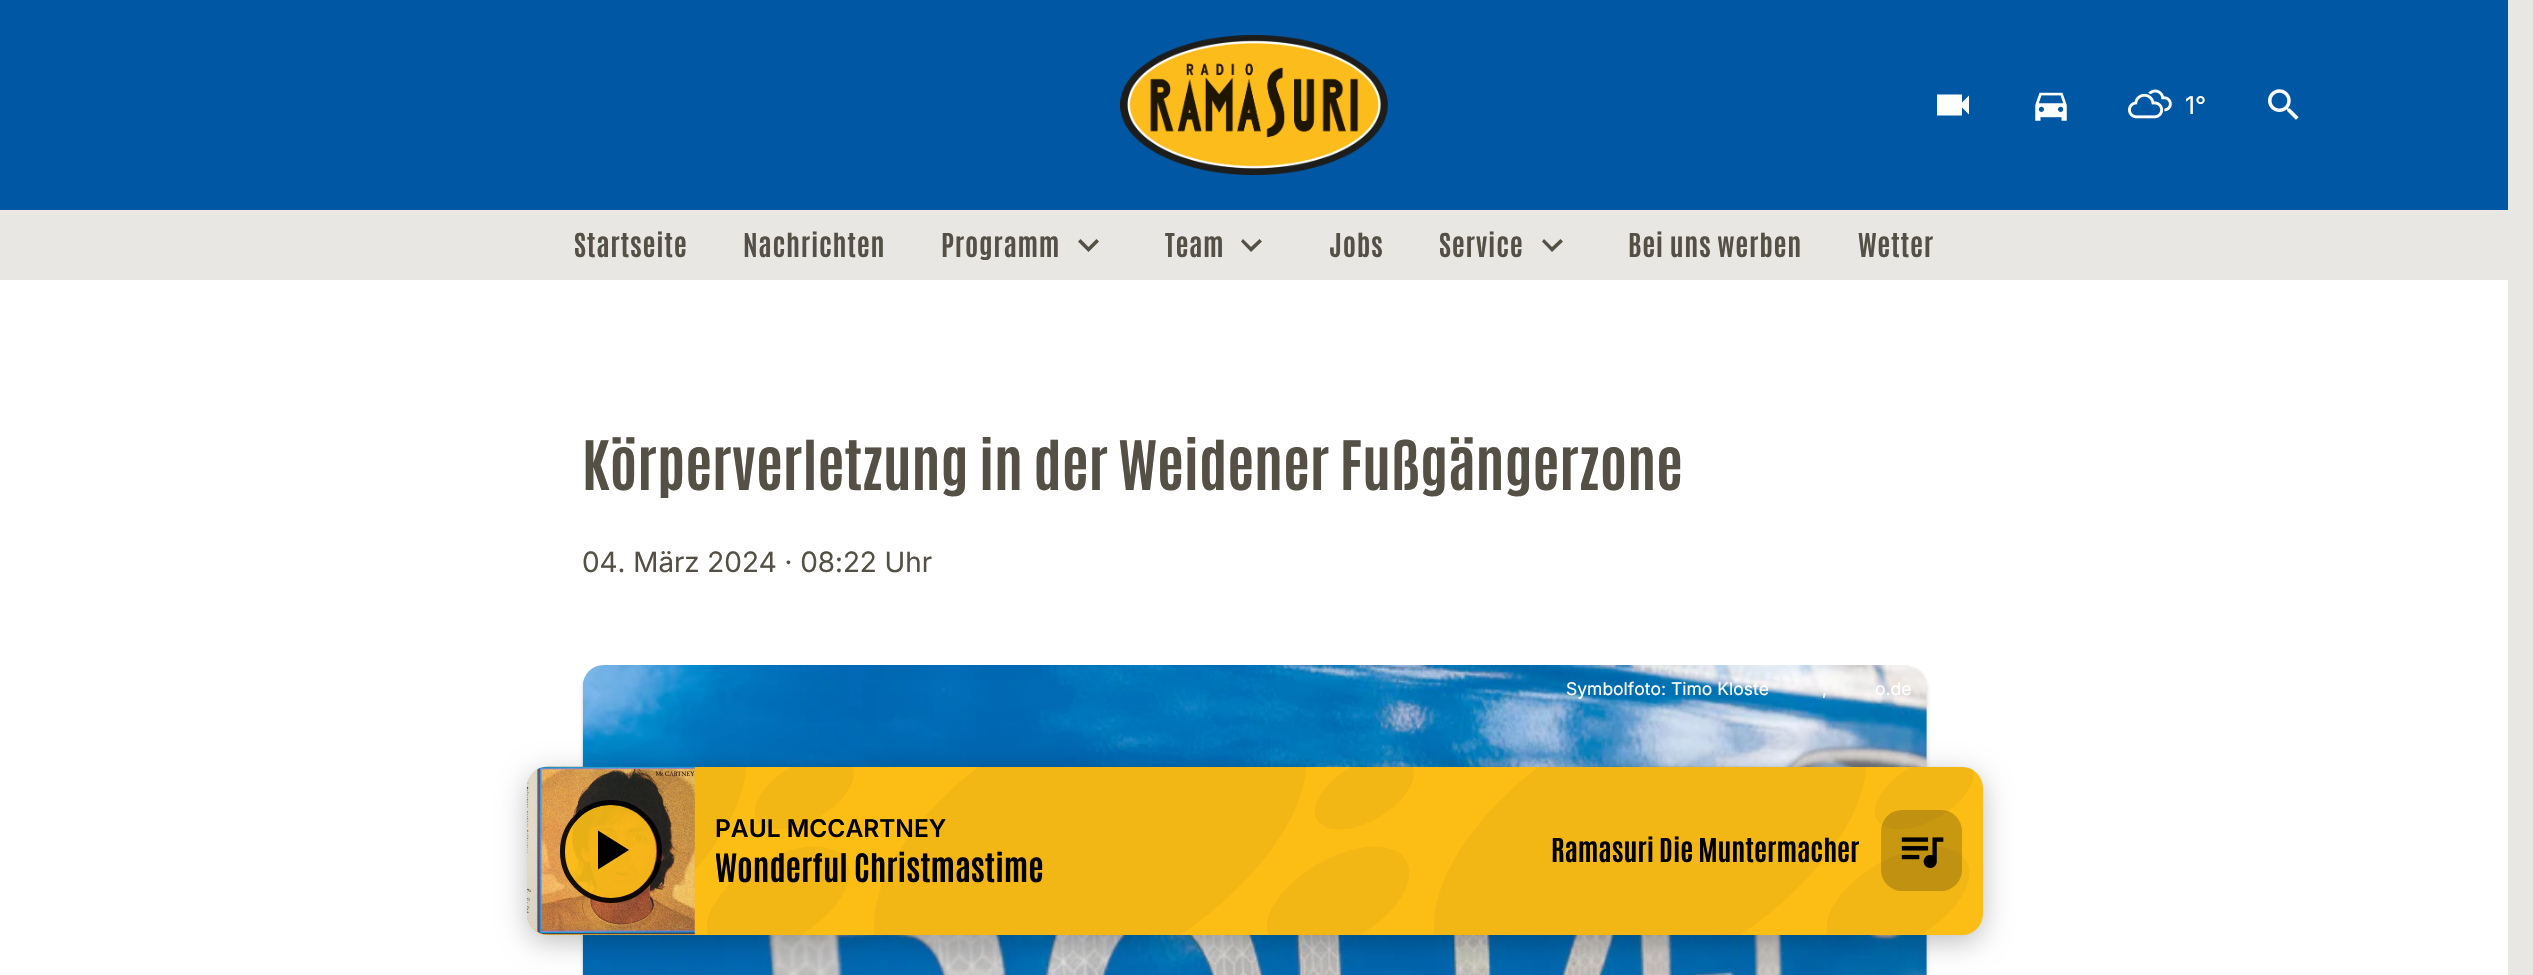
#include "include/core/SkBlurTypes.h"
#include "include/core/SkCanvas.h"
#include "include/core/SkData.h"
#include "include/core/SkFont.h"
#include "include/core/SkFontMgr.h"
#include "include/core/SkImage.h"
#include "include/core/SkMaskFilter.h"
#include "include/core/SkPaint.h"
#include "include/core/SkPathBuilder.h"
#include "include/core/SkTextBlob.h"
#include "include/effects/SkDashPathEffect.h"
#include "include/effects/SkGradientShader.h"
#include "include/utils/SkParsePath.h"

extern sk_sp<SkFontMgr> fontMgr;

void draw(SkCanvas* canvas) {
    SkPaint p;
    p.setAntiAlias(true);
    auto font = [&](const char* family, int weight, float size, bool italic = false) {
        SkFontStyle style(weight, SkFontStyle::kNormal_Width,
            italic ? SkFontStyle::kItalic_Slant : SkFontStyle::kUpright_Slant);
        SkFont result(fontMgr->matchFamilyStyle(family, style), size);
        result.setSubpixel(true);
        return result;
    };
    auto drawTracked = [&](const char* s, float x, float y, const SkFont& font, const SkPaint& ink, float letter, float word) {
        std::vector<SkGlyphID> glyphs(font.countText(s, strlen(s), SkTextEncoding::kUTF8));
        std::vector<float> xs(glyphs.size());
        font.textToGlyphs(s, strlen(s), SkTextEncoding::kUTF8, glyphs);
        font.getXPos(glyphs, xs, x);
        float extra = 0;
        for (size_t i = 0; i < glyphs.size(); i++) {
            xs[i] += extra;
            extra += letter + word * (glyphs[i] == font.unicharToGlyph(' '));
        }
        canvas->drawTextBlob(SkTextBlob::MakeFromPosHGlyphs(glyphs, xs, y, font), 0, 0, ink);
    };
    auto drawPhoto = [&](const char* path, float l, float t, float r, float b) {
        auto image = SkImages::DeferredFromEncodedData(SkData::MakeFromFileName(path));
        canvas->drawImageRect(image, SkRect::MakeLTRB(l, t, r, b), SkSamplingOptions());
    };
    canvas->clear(0xFFE8E7E3);
    p.setColor(0xFF0058A4);
    canvas->drawRect(SkRect::MakeLTRB(0, 0, 2508, 210), p);
    drawPhoto("media/1.png", 1120, 35, 1388, 175);
    p.setColor(0xFFFFFFFF);
    canvas->drawPath(SkPathBuilder().moveTo(1962, 102.5f).lineTo(1962, 94.5f).lineTo(1937, 94.5f).lineTo(1937, 115.5f).lineTo(1962, 115.5f).lineTo(1962, 107.5f).lineTo(1969, 114.5f).lineTo(1969, 95.5f).close().detach(), p);
    drawPhoto("media/2.png", 2035, 92, 2067, 121);
    drawPhoto("media/3.png", 2128, 89, 2172, 119);
    auto font1 = font("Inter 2", 400, 24.5f);
    canvas->drawString("1°", 2185, 114, font1, p);
    drawPhoto("media/4.png", 2268, 89, 2299, 120);
    auto font2 = font("Antonio", 700, 28);
    p.setColor(0xFF545045);
    {
        const struct { const char* s; float x, y; } items[] = {
            {"Startseite", 574, 257},
            {"Nachrichten", 743, 257},
            {"Programm", 941, 257},
        };
        for (auto [s, x, y] : items) {
            drawTracked(s, x, y, font2, p, 0.75f, 0);
        }
    }
    canvas->drawPath(SkPathBuilder().moveTo(1096.5f, 239).lineTo(1088.5f, 247).lineTo(1080.5f, 239).lineTo(1078, 241.5f).lineTo(1088.5f, 252).lineTo(1099, 241.5f).close().detach(), p);
    drawTracked("Team", 1165, 257, font2, p, 0.75f, 0);
    canvas->drawPath(SkPathBuilder().moveTo(1259.5f, 239).lineTo(1251, 247).lineTo(1243, 239).lineTo(1241, 241.5f).lineTo(1251, 252).lineTo(1262, 241.5f).close().detach(), p);
    drawTracked("Jobs", 1329, 257, font2, p, 0.75f, 0);
    drawTracked("Service", 1439, 257, font2, p, 0.75f, 0);
    canvas->drawPath(SkPathBuilder().moveTo(1560.5f, 239).lineTo(1552, 247).lineTo(1544, 239).lineTo(1542, 241.5f).lineTo(1552, 252).lineTo(1563, 241.5f).close().detach(), p);
    drawTracked("Bei uns werben", 1628, 257, font2, p, 0.75f, 0);
    drawTracked("Wetter", 1858, 257, font2, p, 0.75f, 0);
    p.setColor(0xFFFFFFFF);
    canvas->drawRect(SkRect::MakeLTRB(0, 280, 2508, 975), p);
    auto font3 = font("Antonio", 700, 58);
    p.setColor(0xFF545045);
    canvas->drawString("Körperverletzung in der Weidener Fußgängerzone", 582, 490, font3, p);
    auto font4 = font("Inter", 400, 28);
    canvas->drawString("04. März 2024 · 08:22 Uhr", 582, 572, font4, p);
    p.setColor(0x333D3829);
    p.setMaskFilter(SkMaskFilter::MakeBlur(kNormal_SkBlurStyle, 2));
    canvas->drawRoundRect(SkRect::MakeLTRB(583, 669, 1927, 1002), 21, 21, p);
    p.setMaskFilter(nullptr);
    drawPhoto("media/5.png", 582, 665, 1927, 975);
    auto font5 = font("Inter 2", 400, 17.5f);
    p.setColor(0xFFFFFFFF);
    {
        const struct { const char* s; float x, y; } items[] = {
            {"Symbolfoto: Timo Kloste", 1566, 695},
            {",", 1822, 695},
            {"o.de", 1875, 695},
        };
        for (auto [s, x, y] : items) {
            canvas->drawString(s, x, y, font5, p);
        }
    }
    p.setColor(0x40000000);
    p.setMaskFilter(SkMaskFilter::MakeBlur(kNormal_SkBlurStyle, 14));
    canvas->drawRoundRect(SkRect::MakeLTRB(527, 774, 1983, 942), 21, 21, p);
    p.setMaskFilter(nullptr);
    drawPhoto("media/6.png", 527, 767, 1974, 935);
    p.setColor(0xFFFCBE15);
    canvas->drawRoundRect(SkRect::MakeLTRB(527, 767, 1983, 935), 21, 21, p);
    drawPhoto("media/7.png", 527, 766, 1974, 935);
    drawPhoto("media/8.png", 526, 766, 695, 935);
    p.setColor(0xE6FCBE15);
    canvas->drawRoundRect(SkRect::MakeLTRB(565, 805, 656, 898), 45.5f, 45.5f, p);
    p.setStyle(SkPaint::kStroke_Style);
    p.setStrokeWidth(5);
    p.setColor(0xE6000000);
    canvas->drawRoundRect(SkRect::MakeLTRB(562.5f, 802.5f, 659.5f, 900.5f), 48.5f, 48.5f, p);
    p.setStyle(SkPaint::kFill_Style);
    p.setColor(0xFF000000);
    canvas->drawPath(SkPathBuilder().moveTo(598, 830.5f).lineTo(598, 869.5f).lineTo(629, 850).close().detach(), p);
    auto font6 = font("Inter", 600, 24.5f);
    canvas->drawString("PAUL MCCARTNEY", 715, 837, font6, p);
    canvas->save();
    canvas->clipRect(SkRect::MakeLTRB(716, 847, 1530, 891));
    auto font7 = font("Antonio", 700, 33.25f);
    canvas->drawString("Wonderful Christmastime", 715, 882, font7, p);
    canvas->restore();
    canvas->drawString("Ramasuri Die Muntermacher", 1551, 862, font2, p);
    p.setColor(0x33000000);
    canvas->drawRoundRect(SkRect::MakeLTRB(1881, 810, 1962, 891), 21, 21, p);
    drawPhoto("media/9.png", 1901, 837, 1944, 868);
}
